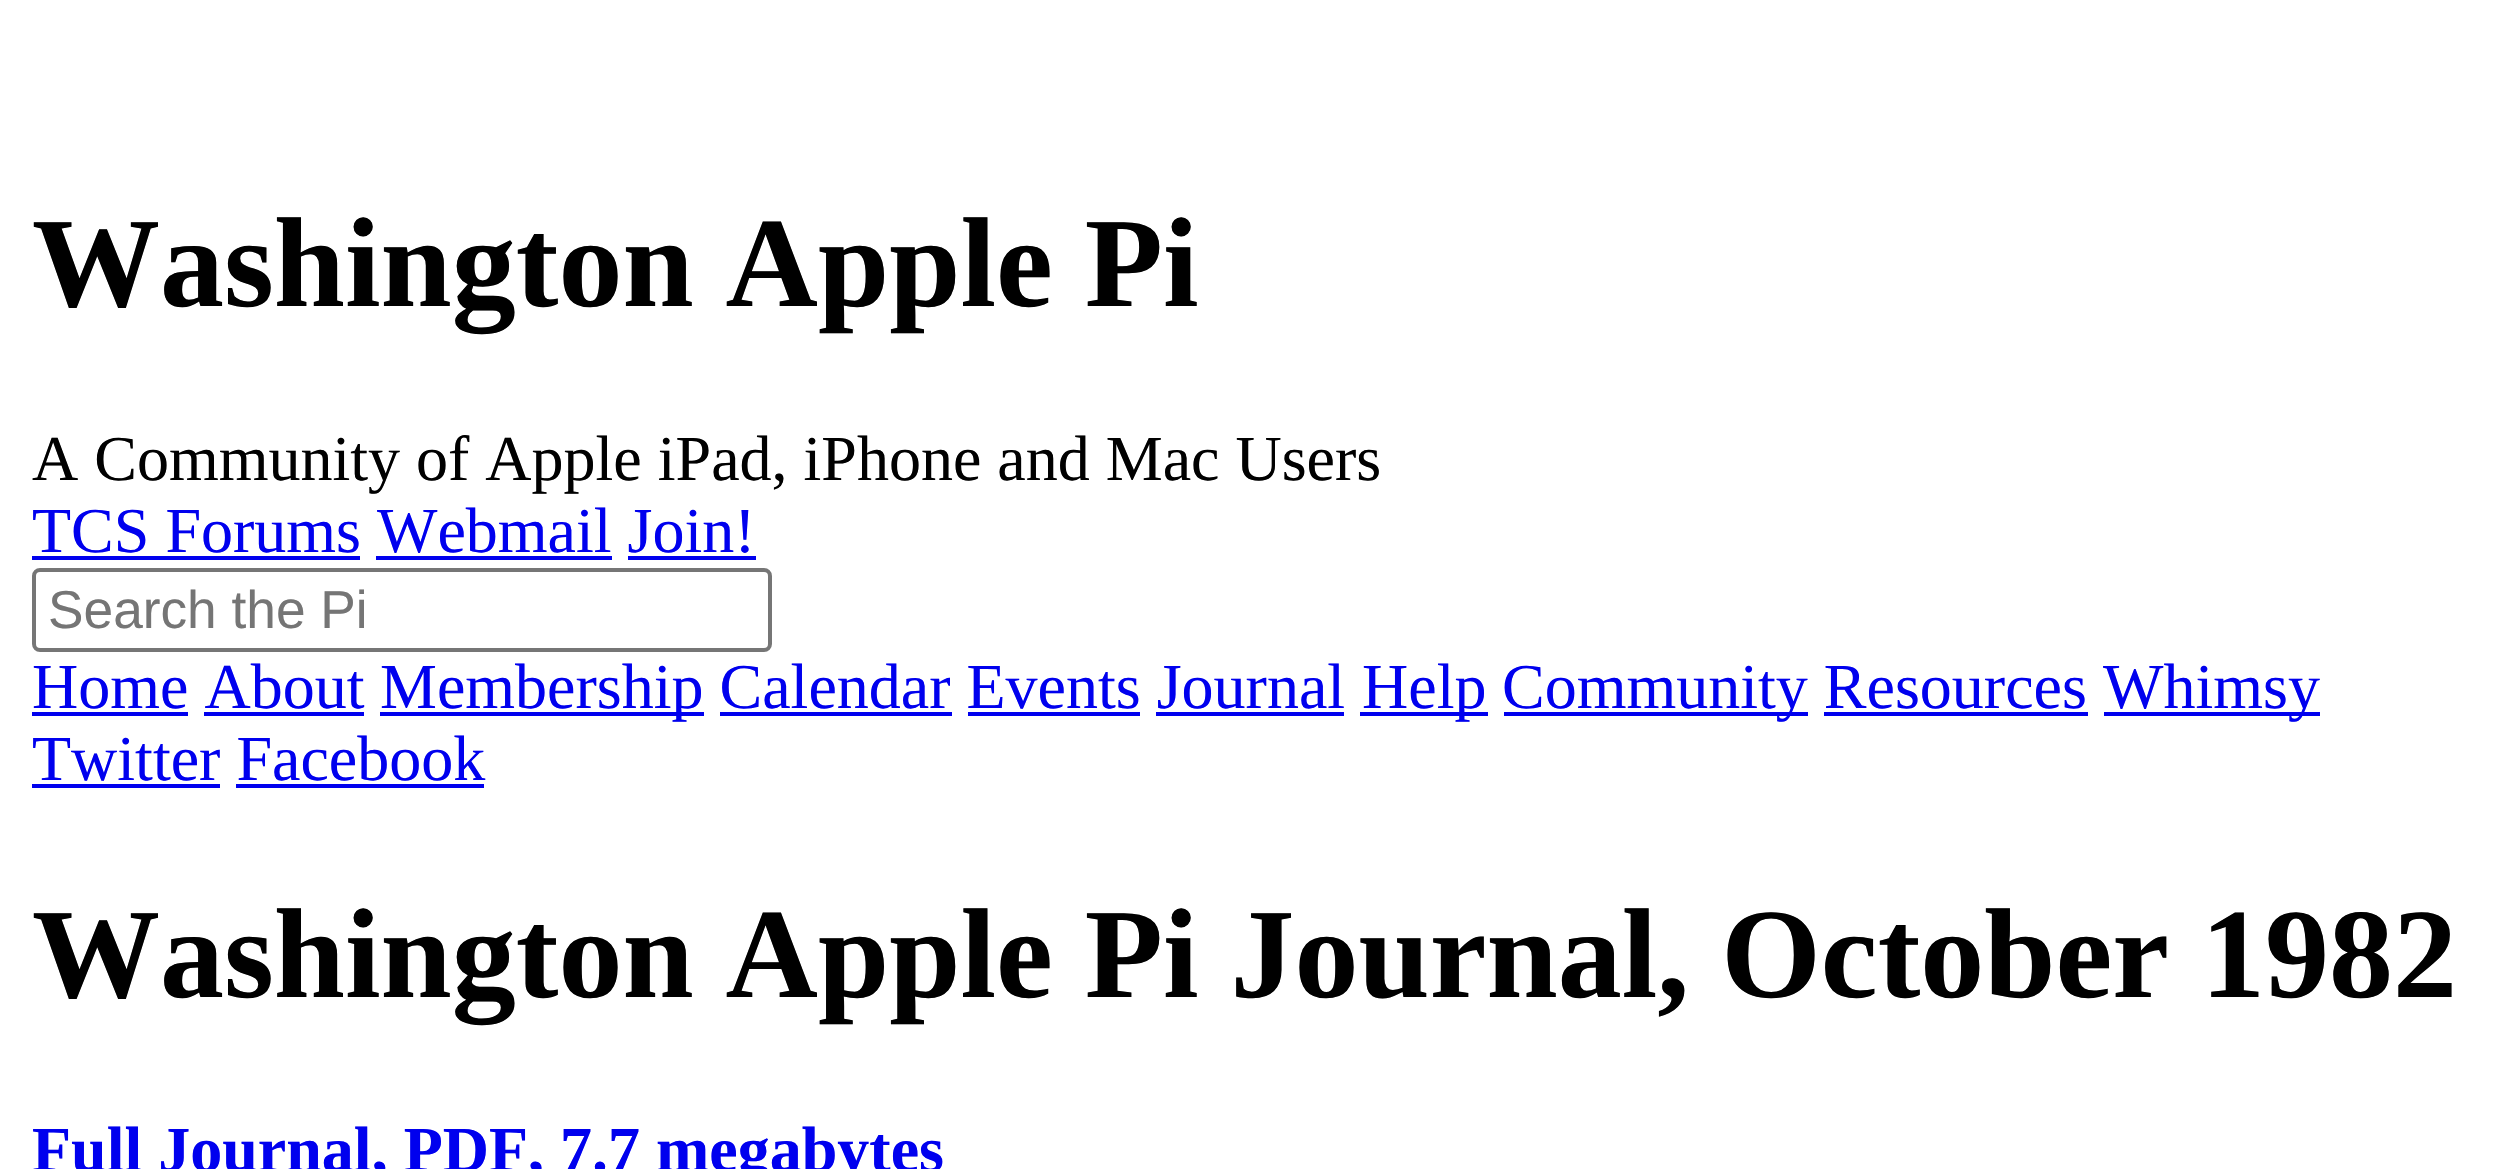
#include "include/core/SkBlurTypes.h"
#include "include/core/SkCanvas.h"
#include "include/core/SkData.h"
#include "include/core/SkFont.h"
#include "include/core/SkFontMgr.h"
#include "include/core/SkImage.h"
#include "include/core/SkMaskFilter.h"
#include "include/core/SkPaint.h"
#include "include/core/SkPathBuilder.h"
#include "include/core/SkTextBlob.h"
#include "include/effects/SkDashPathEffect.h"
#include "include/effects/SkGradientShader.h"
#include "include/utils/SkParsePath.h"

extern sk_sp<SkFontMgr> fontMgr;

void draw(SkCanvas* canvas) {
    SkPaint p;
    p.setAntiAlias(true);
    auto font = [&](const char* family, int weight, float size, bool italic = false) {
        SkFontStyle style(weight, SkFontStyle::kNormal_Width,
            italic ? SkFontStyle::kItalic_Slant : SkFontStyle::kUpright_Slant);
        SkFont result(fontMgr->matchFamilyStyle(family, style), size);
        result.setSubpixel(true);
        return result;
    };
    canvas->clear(0xFFFFFFFF);
    auto font1 = font("Liberation Serif", 700, 128);
    p.setColor(0xFF000000);
    canvas->drawString("Washington Apple Pi", 32, 306, font1, p);
    auto font2 = font("Liberation Serif", 400, 64);
    canvas->drawString("A Community of Apple iPad, iPhone and Mac Users", 32, 480, font2, p);
    p.setColor(0xFF0000EE);
    canvas->drawString("TCS Forums Webmail Join!", 32, 552, font2, p);
    {
        const struct { float l, t, r, b; SkColor color; } items[] = {
            {32, 556, 360, 560, 0xFF0000EE},
            {376, 556, 612, 560, 0xFF0000EE},
            {628, 556, 756, 560, 0xFF0000EE},
        };
        for (auto [l, t, r, b, color] : items) {
            p.setColor(color);
            canvas->drawRect(SkRect::MakeLTRB(l, t, r, b), p);
        }
    }
    p.setStyle(SkPaint::kStroke_Style);
    p.setStrokeWidth(4);
    p.setColor(0xFF767676);
    canvas->drawRoundRect(SkRect::MakeLTRB(34, 570, 770, 650), 6, 6, p);
    auto font3 = font("Liberation Sans", 400, 53.25f);
    p.setStyle(SkPaint::kFill_Style);
    p.setColor(0xFF757575);
    canvas->drawString("Search the Pi", 48, 628, font3, p);
    p.setColor(0xFF0000EE);
    canvas->drawString("Home About", 32, 708, font2, p);
    canvas->drawRect(SkRect::MakeLTRB(32, 712, 188, 716), p);
    canvas->drawRect(SkRect::MakeLTRB(380, 712, 704, 716), p);
    canvas->drawString("Membership Calendar Events Journal", 380, 708, font2, p);
    canvas->drawRect(SkRect::MakeLTRB(1360, 712, 1488, 716), p);
    canvas->drawString("Help", 1362, 708, font2, p);
    canvas->drawRect(SkRect::MakeLTRB(1504, 712, 1808, 716), p);
    canvas->drawString("Community Resources", 1502, 708, font2, p);
    canvas->drawRect(SkRect::MakeLTRB(2104, 712, 2320, 716), p);
    canvas->drawString("Whimsy", 2103, 708, font2, p);
    {
        const struct { float l, t, r, b; SkColor color; } items[] = {
            {204, 712, 364, 716, 0xFF0000EE},
            {720, 712, 952, 716, 0xFF0000EE},
            {968, 712, 1140, 716, 0xFF0000EE},
            {1156, 712, 1344, 716, 0xFF0000EE},
            {1824, 712, 2088, 716, 0xFF0000EE},
        };
        for (auto [l, t, r, b, color] : items) {
            p.setColor(color);
            canvas->drawRect(SkRect::MakeLTRB(l, t, r, b), p);
        }
    }
    canvas->drawString("Twitter Facebook", 32, 780, font2, p);
    canvas->drawRect(SkRect::MakeLTRB(32, 784, 220, 788), p);
    canvas->drawRect(SkRect::MakeLTRB(236, 784, 484, 788), p);
    p.setColor(0xFF000000);
    canvas->drawString("Washington Apple Pi Journal, October 1982", 32, 997, font1, p);
    auto font4 = font("Liberation Serif", 700, 64);
    p.setColor(0xFF0000EE);
    canvas->drawString("Full Journal, PDF, 7.7 megabytes", 32, 1171, font4, p);
}
